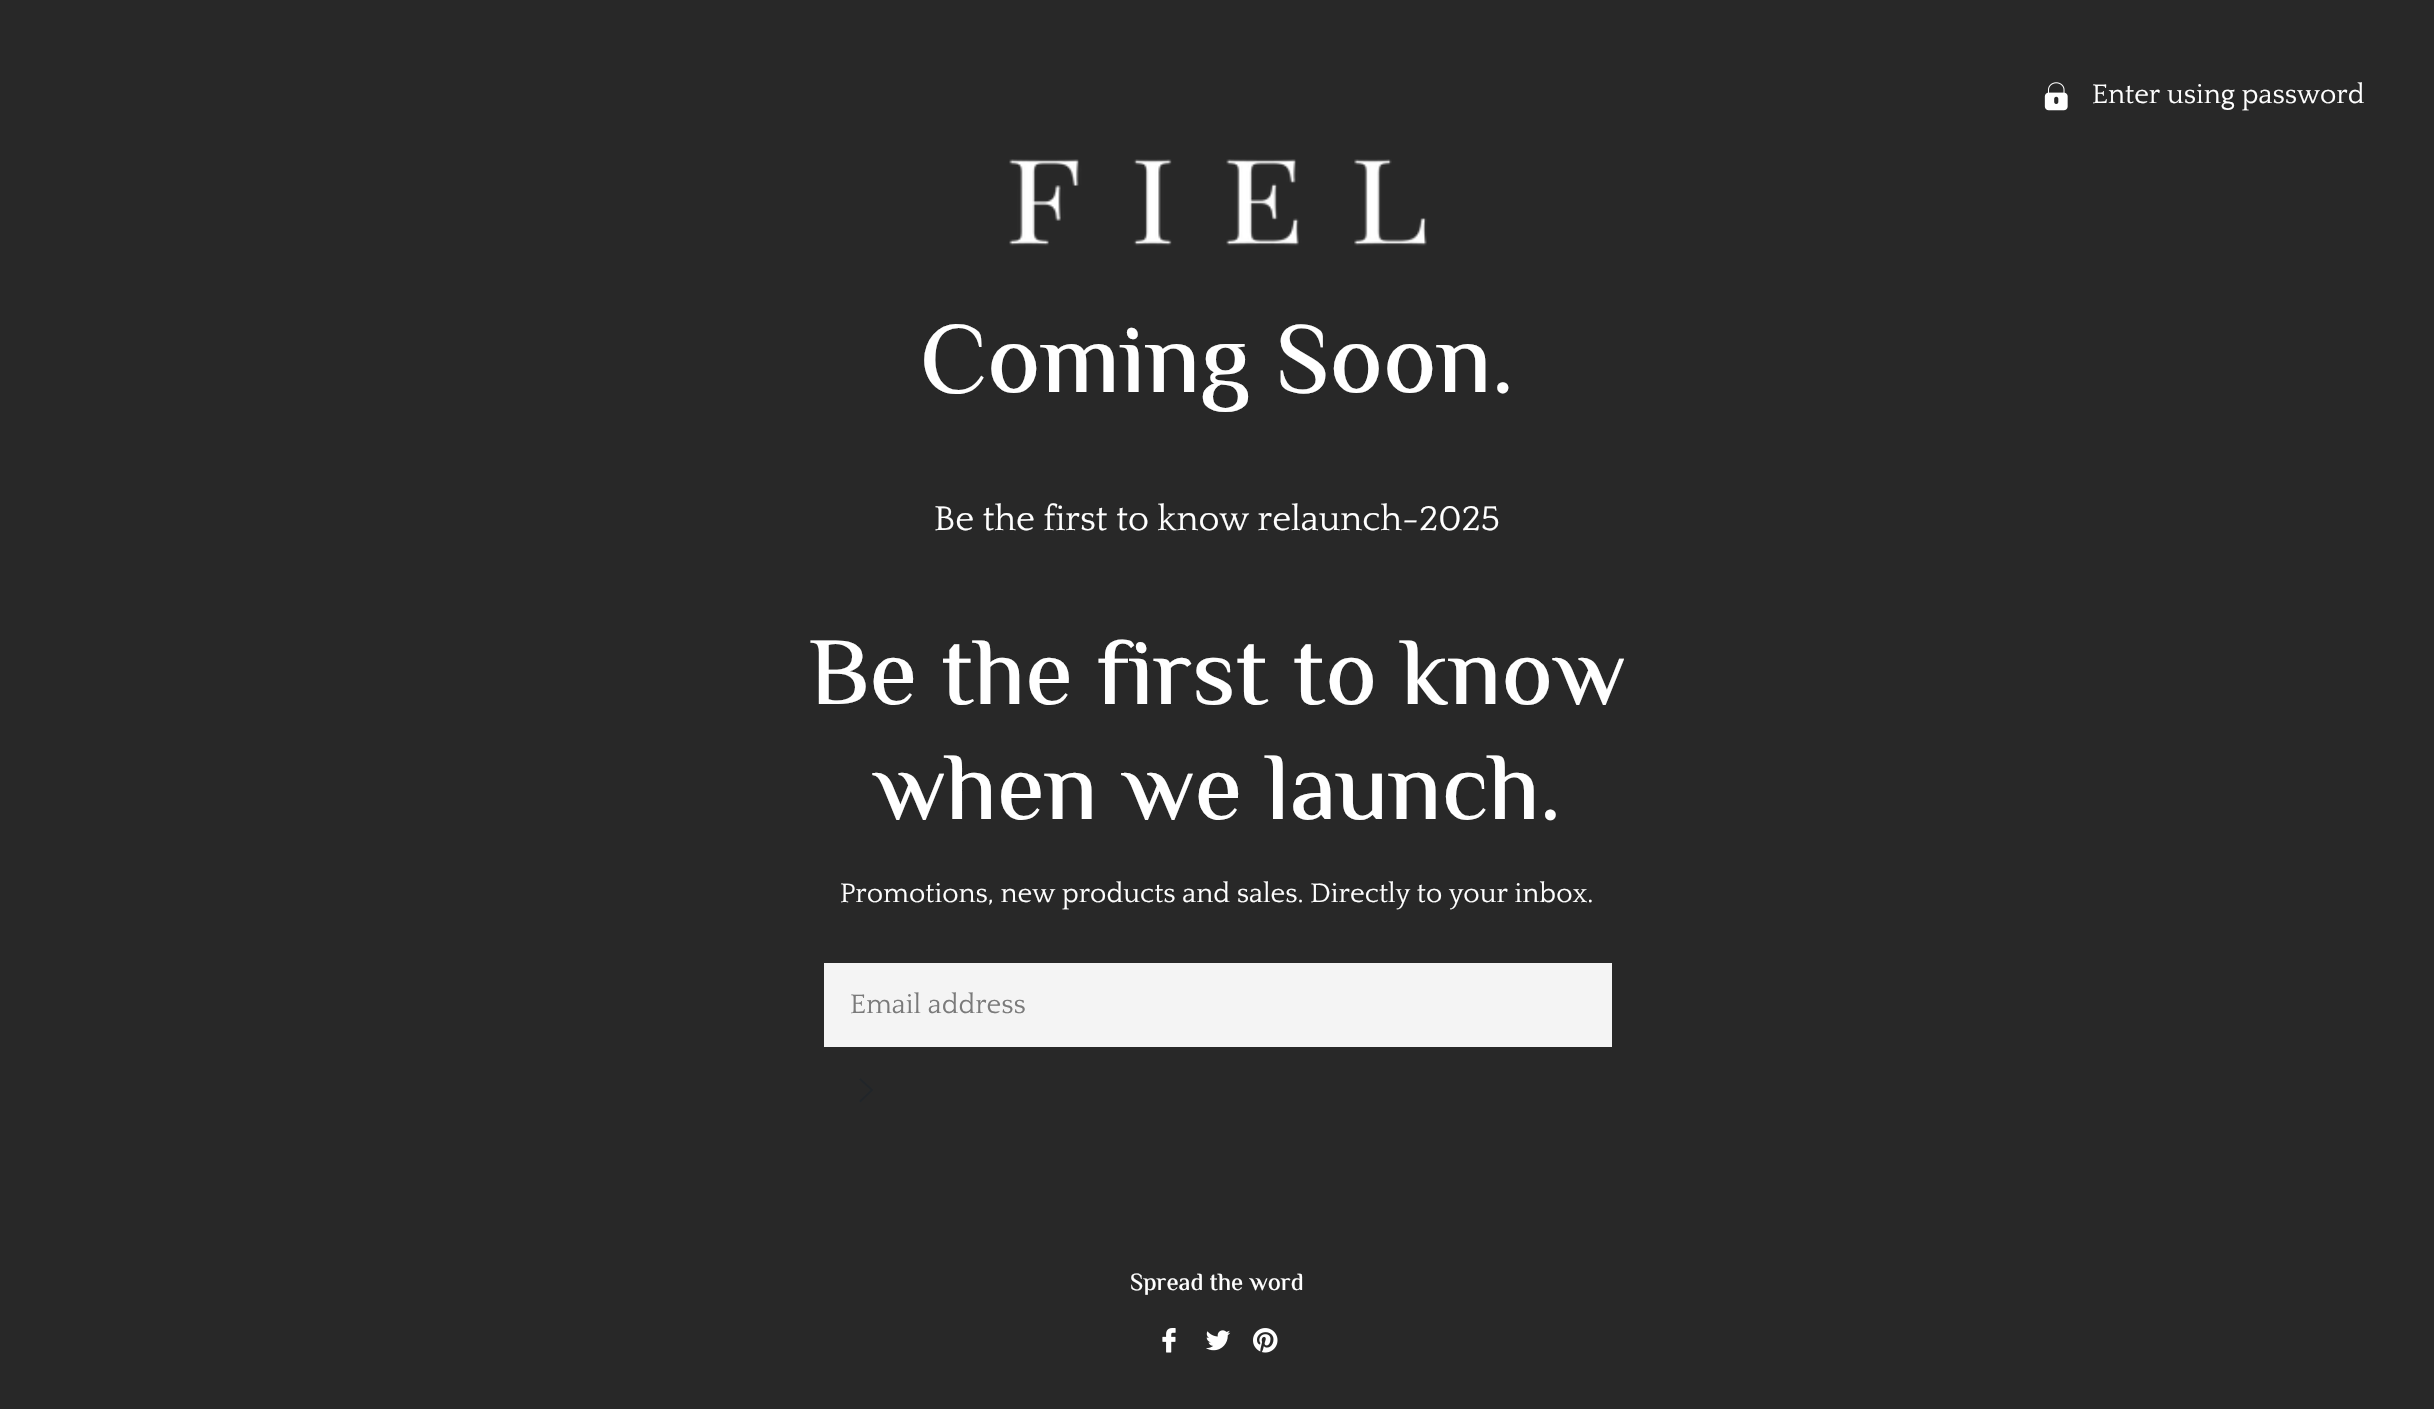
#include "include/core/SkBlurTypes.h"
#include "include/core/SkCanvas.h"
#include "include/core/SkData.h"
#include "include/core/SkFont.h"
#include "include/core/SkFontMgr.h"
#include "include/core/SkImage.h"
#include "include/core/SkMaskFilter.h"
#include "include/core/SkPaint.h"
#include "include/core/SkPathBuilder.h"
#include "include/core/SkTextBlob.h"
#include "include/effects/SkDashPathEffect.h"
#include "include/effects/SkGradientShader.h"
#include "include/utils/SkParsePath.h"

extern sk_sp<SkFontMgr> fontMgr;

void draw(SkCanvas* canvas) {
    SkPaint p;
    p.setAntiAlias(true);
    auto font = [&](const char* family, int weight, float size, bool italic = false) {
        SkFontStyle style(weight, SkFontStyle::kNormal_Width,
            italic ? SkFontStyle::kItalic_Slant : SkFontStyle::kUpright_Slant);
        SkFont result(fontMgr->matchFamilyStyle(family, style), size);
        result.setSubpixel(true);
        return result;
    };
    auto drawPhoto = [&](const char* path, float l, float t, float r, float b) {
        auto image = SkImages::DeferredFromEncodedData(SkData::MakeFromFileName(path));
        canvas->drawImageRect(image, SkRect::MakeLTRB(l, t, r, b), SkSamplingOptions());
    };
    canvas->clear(0xFF282828);
    drawPhoto("media/1.png", 2044, 82, 2068, 111);
    auto font1 = font("Quattrocento", 400, 28);
    p.setColor(0xFFFFFFFF);
    canvas->drawString("Enter using password", 2092, 103, font1, p);
    drawPhoto("media/2.png", 1009, 159, 1427, 246);
    auto font2 = font("El Messiri", 500, 100);
    canvas->drawString("Coming Soon.", 920, 392, font2, p);
    auto font3 = font("Quattrocento", 400, 36);
    canvas->drawString("Be the first to know relaunch-2025", 934, 530, font3, p);
    auto font4 = font("El Messiri", 500, 96.25f);
    canvas->drawString("Be the first to know", 809, 704, font4, p);
    canvas->drawString("when we launch.", 873, 819, font4, p);
    canvas->drawString("Promotions, new products and sales. Directly to your inbox.", 840, 902, font1, p);
    p.setColor(0xFFF4F4F4);
    canvas->drawRect(SkRect::MakeLTRB(824, 963, 1612, 1047), p);
    p.setColor(0xFF7A7A7A);
    canvas->drawString("Email address", 850, 1013, font1, p);
    p.setColor(0xFF212529);
    canvas->drawPath(SkPathBuilder().moveTo(859, 1079.5f).lineTo(860.5f, 1078).lineTo(873.5f, 1090).lineTo(860.5f, 1102.5f).lineTo(859, 1101).lineTo(870.5f, 1090).close().detach(), p);
    auto font5 = font("El Messiri", 500, 24.5f);
    p.setColor(0xFFFFFFFF);
    canvas->drawString("Spread the word", 1130, 1290, font5, p);
    drawPhoto("media/3.png", 1162, 1328, 1176, 1353);
    drawPhoto("media/4.png", 1206, 1330, 1231, 1351);
    drawPhoto("media/5.png", 1253, 1328, 1278, 1353);
}
